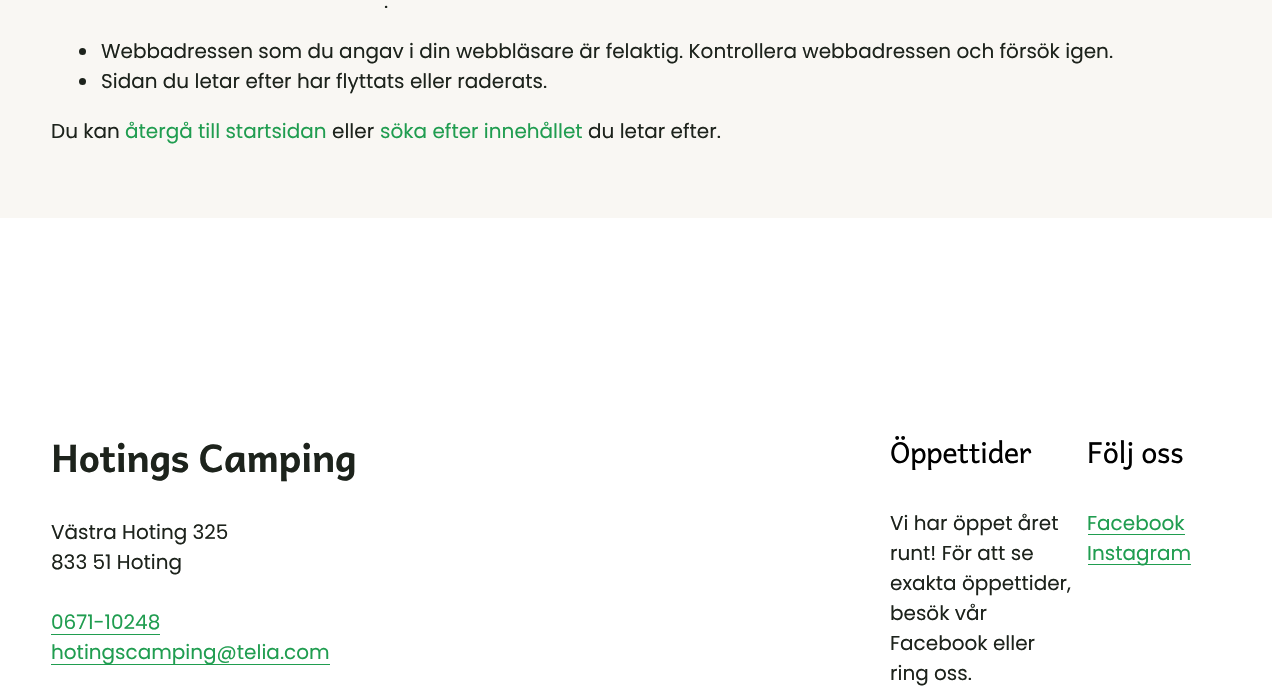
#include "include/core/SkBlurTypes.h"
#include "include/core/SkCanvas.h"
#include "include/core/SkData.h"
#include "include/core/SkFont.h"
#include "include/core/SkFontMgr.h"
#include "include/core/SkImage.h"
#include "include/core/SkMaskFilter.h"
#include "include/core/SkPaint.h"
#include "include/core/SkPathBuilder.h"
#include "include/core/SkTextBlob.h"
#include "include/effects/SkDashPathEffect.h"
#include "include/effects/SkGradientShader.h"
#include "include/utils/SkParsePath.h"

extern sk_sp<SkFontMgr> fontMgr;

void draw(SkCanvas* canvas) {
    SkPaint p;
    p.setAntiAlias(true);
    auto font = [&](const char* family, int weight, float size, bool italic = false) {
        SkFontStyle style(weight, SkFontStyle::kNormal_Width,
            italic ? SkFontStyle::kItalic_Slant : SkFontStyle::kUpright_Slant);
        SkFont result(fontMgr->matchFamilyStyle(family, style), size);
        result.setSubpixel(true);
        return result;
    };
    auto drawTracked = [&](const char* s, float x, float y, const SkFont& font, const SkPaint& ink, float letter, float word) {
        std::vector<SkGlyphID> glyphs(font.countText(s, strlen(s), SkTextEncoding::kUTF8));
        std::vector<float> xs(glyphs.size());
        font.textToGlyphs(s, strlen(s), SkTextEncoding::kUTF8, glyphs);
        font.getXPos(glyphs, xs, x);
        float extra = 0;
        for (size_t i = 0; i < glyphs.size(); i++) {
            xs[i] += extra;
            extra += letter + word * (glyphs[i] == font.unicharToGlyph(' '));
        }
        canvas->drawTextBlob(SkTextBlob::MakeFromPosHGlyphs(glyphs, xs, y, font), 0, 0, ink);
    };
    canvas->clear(0xFFF9F7F3);
    auto font1 = font("Poppins", 400, 20);
    p.setColor(0xFF1D231C);
    canvas->drawString(".", 384, 8, font1, p);
    canvas->drawCircle(82.5f, 51.5f, 3.5f, p);
    canvas->drawString("Webbadressen som du angav i din webbläsare är felaktig. Kontrollera webbadressen och försök igen.", 101, 58, font1, p);
    canvas->drawCircle(82.5f, 81.5f, 3.5f, p);
    canvas->drawString("Sidan du letar efter har flyttats eller raderats.", 101, 88, font1, p);
    canvas->drawString("Du kan", 51, 138, font1, p);
    p.setColor(0xFF209D50);
    canvas->drawString("återgå till startsidan", 125, 138, font1, p);
    p.setColor(0xFF1D231C);
    canvas->drawString("eller", 332, 138, font1, p);
    p.setColor(0xFF209D50);
    canvas->drawString("söka efter innehållet", 380, 138, font1, p);
    p.setColor(0xFF1D231C);
    canvas->drawString("du letar efter.", 588, 138, font1, p);
    p.setColor(0xFFFFFFFF);
    canvas->drawRect(SkRect::MakeLTRB(0, 218, 1272, 688), p);
    auto font2 = font("Andika", 700, 38.25f);
    p.setColor(0xFF1D231C);
    drawTracked("Hotings Camping", 51, 472, font2, p, -0.75f, 0);
    canvas->drawString("Västra Hoting 325", 51, 539, font1, p);
    canvas->drawString("833 51 Hoting", 51, 569, font1, p);
    p.setColor(0xFF209D50);
    canvas->drawString("0671-10248", 51, 629, font1, p);
    canvas->drawRect(SkRect::MakeLTRB(51, 634, 160, 635), p);
    canvas->drawRect(SkRect::MakeLTRB(51, 664, 330, 665), p);
    canvas->drawString("hotingscamping@telia.com", 51, 659, font1, p);
    auto font3 = font("Andika", 400, 29);
    p.setColor(0xFF000000);
    drawTracked("Öppettider", 890, 463, font3, p, -0.5f, 0);
    p.setColor(0xFF1D231C);
    {
        const struct { const char* s; float x, y; } items[] = {
            {"Vi har öppet året", 890, 530},
            {"runt! För att se", 890, 560},
            {"exakta öppettider,", 890, 590},
            {"besök vår", 890, 620},
            {"Facebook eller", 890, 650},
            {"ring oss.", 890, 680},
        };
        for (auto [s, x, y] : items) {
            canvas->drawString(s, x, y, font1, p);
        }
    }
    p.setColor(0xFF000000);
    drawTracked("Följ oss", 1087, 463, font3, p, -0.5f, 0);
    p.setColor(0xFF209D50);
    canvas->drawString("Facebook", 1087, 530, font1, p);
    canvas->drawRect(SkRect::MakeLTRB(1088, 534, 1185, 535), p);
    canvas->drawRect(SkRect::MakeLTRB(1088, 564, 1191, 565), p);
    canvas->drawString("Instagram", 1087, 560, font1, p);
}
